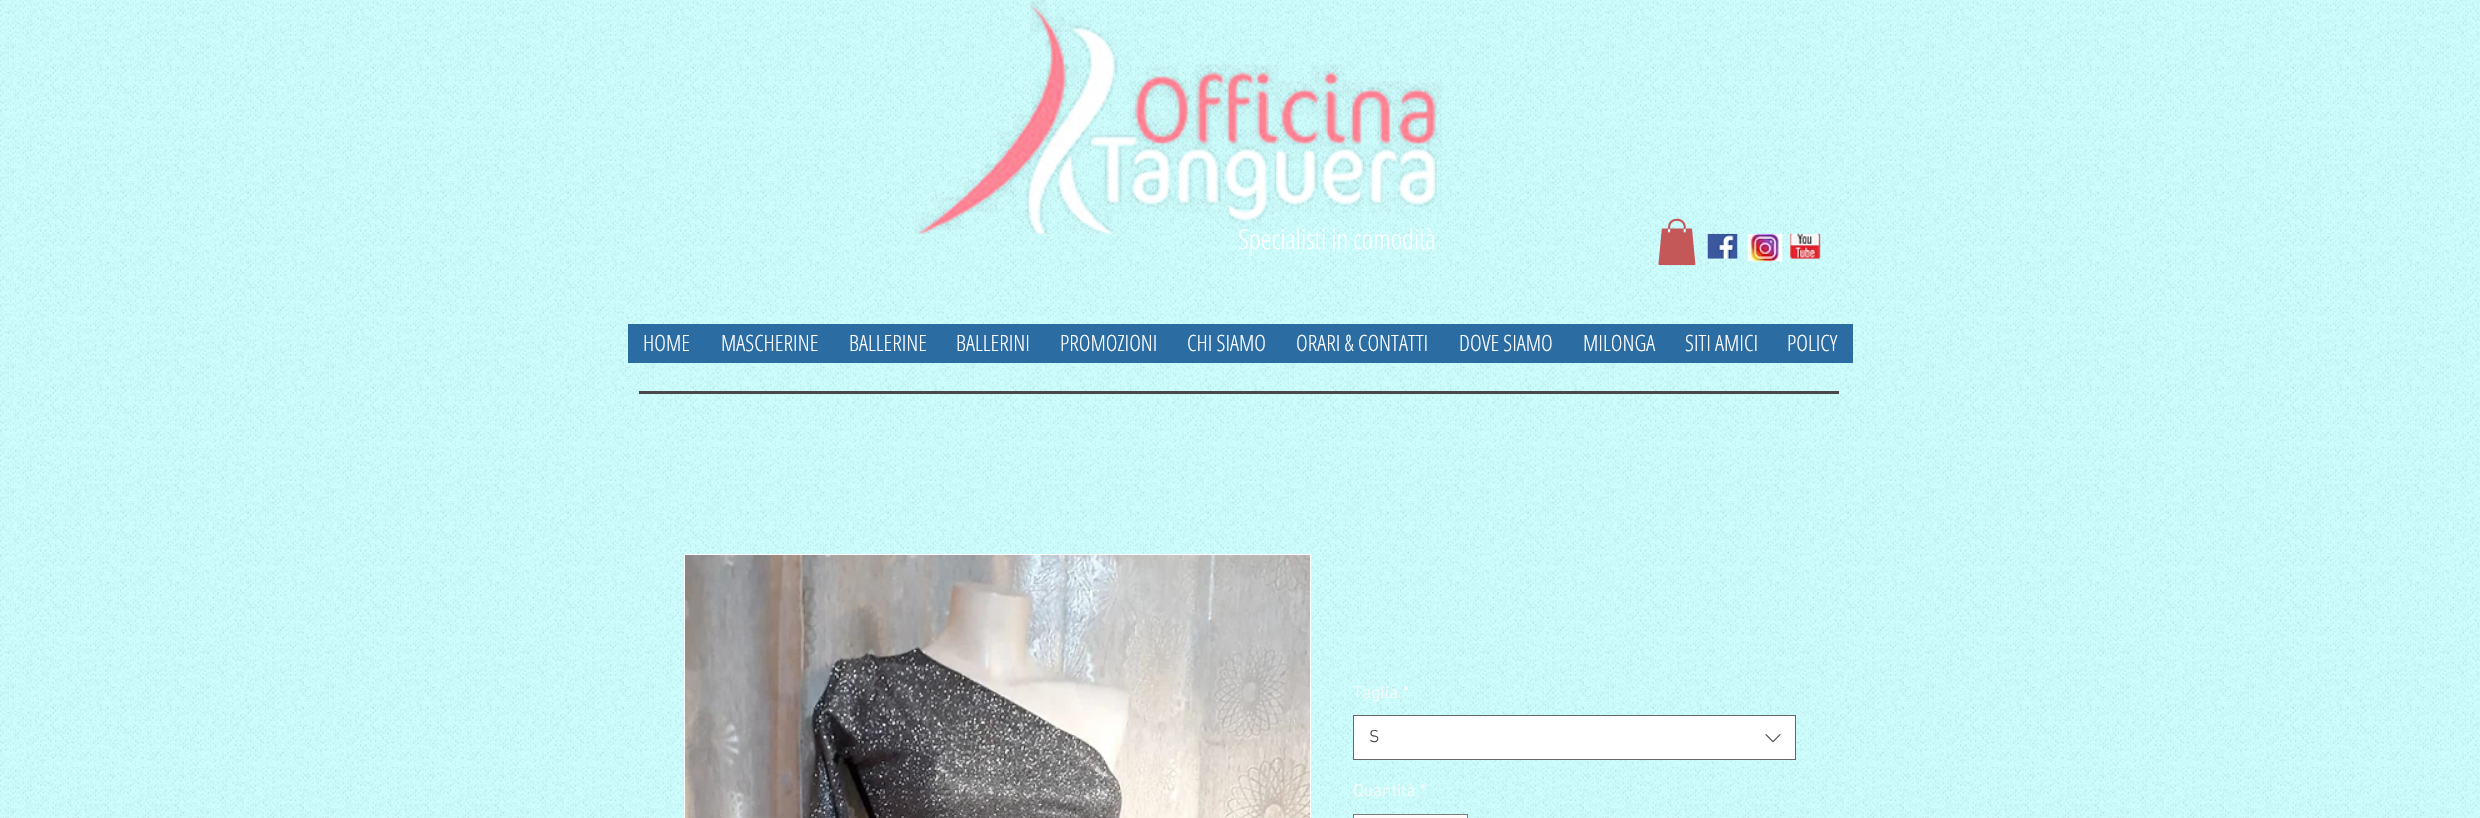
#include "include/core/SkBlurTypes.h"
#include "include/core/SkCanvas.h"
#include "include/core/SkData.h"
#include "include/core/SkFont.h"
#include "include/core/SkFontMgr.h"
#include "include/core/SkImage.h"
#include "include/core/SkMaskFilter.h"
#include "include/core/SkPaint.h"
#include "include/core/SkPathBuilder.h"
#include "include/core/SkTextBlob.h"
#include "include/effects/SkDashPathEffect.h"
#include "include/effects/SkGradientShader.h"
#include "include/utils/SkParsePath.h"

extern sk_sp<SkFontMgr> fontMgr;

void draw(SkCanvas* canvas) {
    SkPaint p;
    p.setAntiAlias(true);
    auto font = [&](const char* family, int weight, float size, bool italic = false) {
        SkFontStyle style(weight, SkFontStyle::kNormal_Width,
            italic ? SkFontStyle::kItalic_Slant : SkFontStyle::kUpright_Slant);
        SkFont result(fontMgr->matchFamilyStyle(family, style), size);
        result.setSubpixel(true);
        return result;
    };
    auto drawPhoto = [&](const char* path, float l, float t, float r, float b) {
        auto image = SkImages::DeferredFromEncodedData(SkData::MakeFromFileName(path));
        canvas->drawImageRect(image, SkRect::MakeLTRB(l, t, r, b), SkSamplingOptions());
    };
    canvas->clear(0xFFCFFFFF);
    drawPhoto("media/1.png", 0, 0, 2480, 818);
    auto font1 = font("Open Sans Condensed", 300, 27.5f);
    p.setColor(0xFFFFFFFF);
    canvas->drawString("Specialisti in comodità", 1238, 249, font1, p);
    drawPhoto("media/2.png", 914, 0, 1442, 234);
    drawPhoto("media/3.png", 1658, 218, 1696, 266);
    drawPhoto("media/4.png", 1707, 233, 1738, 259);
    drawPhoto("media/5.png", 1747, 233, 1783, 262);
    drawPhoto("media/6.png", 1789, 233, 1821, 259);
    p.setColor(0xFF2B6CA3);
    canvas->drawRect(SkRect::MakeLTRB(628, 324, 1853, 363), p);
    auto font2 = font("Open Sans Condensed", 300, 22.5f);
    p.setColor(0xFFFFFFFF);
    {
        const struct { const char* s; float x, y; } items[] = {
            {"HOME", 643, 351},
            {"MASCHERINE", 721, 351},
            {"BALLERINE", 849, 351},
            {"BALLERINI", 956, 351},
            {"PROMOZIONI", 1060, 351},
            {"CHI SIAMO", 1187, 351},
            {"ORARI & CONTATTI", 1296, 351},
            {"DOVE SIAMO", 1459, 351},
            {"MILONGA", 1583, 351},
            {"SITI AMICI", 1685, 351},
            {"POLICY", 1787, 351},
        };
        for (auto [s, x, y] : items) {
            canvas->drawString(s, x, y, font2, p);
        }
    }
    p.setColor(0xFF494949);
    canvas->drawRect(SkRect::MakeLTRB(639, 391, 1839, 394), p);
    p.setStyle(SkPaint::kStroke_Style);
    p.setStrokeWidth(1);
    p.setColor(0xFFFCF9F8);
    canvas->drawRect(SkRect::MakeLTRB(684.5f, 554.5f, 1310.5f, 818.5f), p);
    drawPhoto("media/7.png", 685, 555, 1310, 818);
    auto font3 = font("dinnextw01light", 300, 17.5f);
    p.setStyle(SkPaint::kFill_Style);
    canvas->drawString("Taglia", 1353, 698, font3, p);
    canvas->drawString("*", 1403, 698, font3, p);
    p.setColor(0xFFFFFFFF);
    canvas->drawRect(SkRect::MakeLTRB(1353.5f, 715.5f, 1795.5f, 759.5f), p);
    p.setStyle(SkPaint::kStroke_Style);
    p.setColor(0xFF666666);
    canvas->drawRect(SkRect::MakeLTRB(1353.5f, 715.5f, 1795.5f, 759.5f), p);
    p.setStyle(SkPaint::kFill_Style);
    p.setColor(0xFF444444);
    canvas->drawString("S", 1369, 742, font3, p);
    drawPhoto("media/8.png", 1765, 734, 1781, 743);
    p.setColor(0xFFFCF9F8);
    canvas->drawString("Quantità", 1353, 796, font3, p);
    canvas->drawString("*", 1420, 796, font3, p);
    canvas->drawRect(SkRect::MakeLTRB(1353.5f, 814.5f, 1467.5f, 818.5f), p);
    p.setStyle(SkPaint::kStroke_Style);
    p.setColor(0xFF7D7C7B);
    canvas->drawRect(SkRect::MakeLTRB(1353.5f, 814.5f, 1467.5f, 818.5f), p);
}
